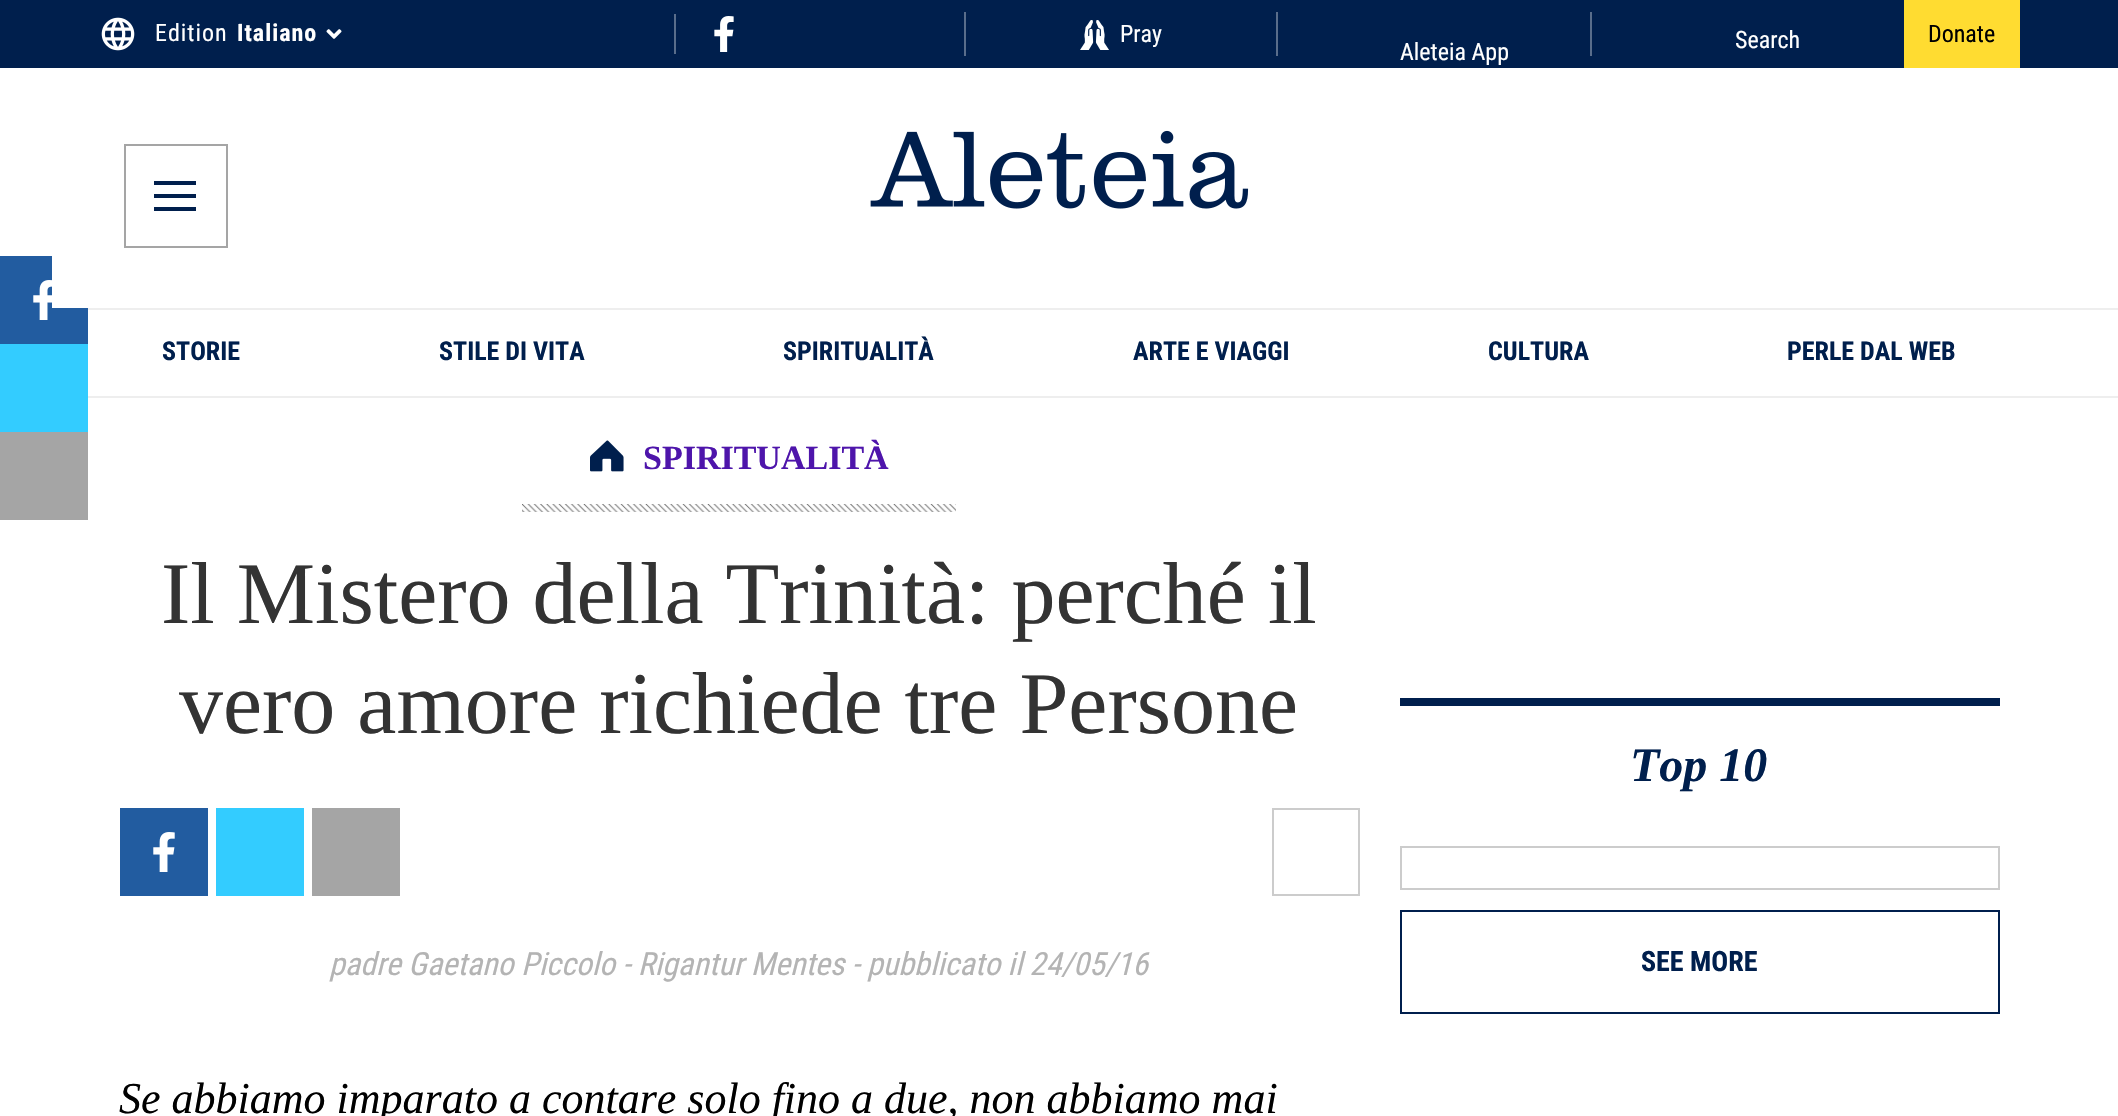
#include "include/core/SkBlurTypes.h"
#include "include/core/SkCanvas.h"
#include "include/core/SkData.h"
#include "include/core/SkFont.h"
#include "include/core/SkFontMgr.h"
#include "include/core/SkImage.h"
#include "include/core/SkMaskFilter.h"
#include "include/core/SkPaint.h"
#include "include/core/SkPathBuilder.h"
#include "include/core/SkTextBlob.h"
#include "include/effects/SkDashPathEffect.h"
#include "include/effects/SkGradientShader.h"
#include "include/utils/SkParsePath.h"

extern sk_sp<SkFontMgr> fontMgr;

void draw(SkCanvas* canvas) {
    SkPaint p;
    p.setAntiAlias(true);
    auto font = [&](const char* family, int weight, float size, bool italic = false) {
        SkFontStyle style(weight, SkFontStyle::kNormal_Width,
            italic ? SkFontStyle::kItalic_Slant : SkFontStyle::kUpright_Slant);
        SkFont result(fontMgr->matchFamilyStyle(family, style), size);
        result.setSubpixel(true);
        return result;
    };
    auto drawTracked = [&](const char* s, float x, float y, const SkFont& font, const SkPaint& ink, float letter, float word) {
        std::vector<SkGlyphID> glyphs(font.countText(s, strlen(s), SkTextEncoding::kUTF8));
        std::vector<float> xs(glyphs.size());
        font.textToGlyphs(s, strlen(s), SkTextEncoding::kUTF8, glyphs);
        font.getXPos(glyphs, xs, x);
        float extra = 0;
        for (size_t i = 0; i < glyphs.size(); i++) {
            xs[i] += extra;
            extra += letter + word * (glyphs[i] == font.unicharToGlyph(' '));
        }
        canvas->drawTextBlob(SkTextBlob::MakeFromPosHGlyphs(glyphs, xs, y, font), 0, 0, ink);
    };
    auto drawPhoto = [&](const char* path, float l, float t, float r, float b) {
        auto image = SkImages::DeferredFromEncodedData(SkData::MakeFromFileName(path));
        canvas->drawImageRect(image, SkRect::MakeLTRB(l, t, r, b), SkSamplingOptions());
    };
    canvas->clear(0xFFFFFFFF);
    p.setColor(0xFF001F4D);
    canvas->drawRect(SkRect::MakeLTRB(0, 0, 2118, 68), p);
    drawPhoto("media/1.png", 101, 17, 135, 51);
    auto font1 = font("Roboto Condensed", 400, 24);
    p.setColor(0xFFFFFFFF);
    drawTracked("Edition", 155, 41, font1, p, 1, 0);
    auto font2 = font("Roboto Condensed", 700, 24);
    drawTracked("Italiano", 237, 41, font2, p, 1, 0);
    drawPhoto("media/2.png", 326, 29, 342, 39);
    p.setColor(0xFF596D8B);
    canvas->drawRect(SkRect::MakeLTRB(674, 14, 676, 54), p);
    drawPhoto("media/3.png", 714, 16, 734, 52);
    canvas->drawRect(SkRect::MakeLTRB(964, 12, 966, 56), p);
    drawPhoto("media/4.png", 1080, 20, 1109, 50);
    p.setColor(0xFFFFFFFF);
    canvas->drawString("Pray", 1120, 42, font1, p);
    p.setColor(0xFF596D8B);
    canvas->drawRect(SkRect::MakeLTRB(1590, 12, 1592, 56), p);
    p.setColor(0xFFFFFFFF);
    canvas->drawString("Search", 1735, 48, font1, p);
    p.setColor(0xFFFFDC31);
    canvas->drawRect(SkRect::MakeLTRB(1904, 0, 2020, 68), p);
    p.setColor(0xFF000000);
    canvas->drawString("Donate", 1928, 42, font1, p);
    p.setColor(0xFF596D8B);
    canvas->drawRect(SkRect::MakeLTRB(1276, 12, 1278, 56), p);
    p.setColor(0xFFFFFFFF);
    canvas->drawString("Aleteia App", 1400, 60, font1, p);
    p.setColor(0xFF225CA0);
    canvas->drawRect(SkRect::MakeLTRB(0, 256, 88, 344), p);
    p.setColor(0xFFFFFFFF);
    canvas->drawRect(SkRect::MakeLTRB(52, 256, 88, 308), p);
    p.setStyle(SkPaint::kStroke_Style);
    p.setStrokeWidth(2);
    p.setColor(0xFFA5A5A5);
    canvas->drawRect(SkRect::MakeLTRB(125, 145, 227, 247), p);
    p.setStyle(SkPaint::kFill_Style);
    p.setColor(0xFF001F4D);
    canvas->drawPath(SkPathBuilder(SkPathFillType::kEvenOdd).moveTo(154, 207).lineTo(154, 211).lineTo(196, 211).lineTo(196, 207).close().moveTo(154, 194).lineTo(154, 198).lineTo(196, 198).lineTo(196, 194).close().moveTo(154, 181).lineTo(154, 185).lineTo(196, 185).lineTo(196, 181).close().detach(), p);
    drawPhoto("media/5.png", 870, 130, 1249, 209);
    p.setColor(0xFFEEEEEE);
    canvas->drawRect(SkRect::MakeLTRB(88, 308, 2118, 310), p);
    canvas->drawRect(SkRect::MakeLTRB(88, 396, 2118, 398), p);
    auto font3 = font("Roboto Condensed", 700, 26);
    p.setColor(0xFF001F4D);
    {
        const struct { const char* s; float x, y; } items[] = {
            {"STORIE", 162, 360},
            {"STILE DI VITA", 439, 360},
            {"SPIRITUALITÀ", 783, 360},
            {"ARTE E VIAGGI", 1133, 360},
            {"CULTURA", 1488, 360},
            {"PERLE DAL WEB", 1787, 360},
        };
        for (auto [s, x, y] : items) {
            canvas->drawString(s, x, y, font3, p);
        }
    }
    drawPhoto("media/6.png", 33, 280, 52, 320);
    p.setColor(0xFF33CCFF);
    canvas->drawRect(SkRect::MakeLTRB(0, 344, 88, 432), p);
    p.setColor(0xFFA5A5A5);
    canvas->drawRect(SkRect::MakeLTRB(0, 432, 88, 520), p);
    drawPhoto("media/7.png", 590, 440, 624, 472);
    auto font4 = font("Liberation Serif", 700, 34);
    p.setColor(0xFF4E15AB);
    canvas->drawString("SPIRITUALITÀ", 643, 469, font4, p);
    drawPhoto("media/8.png", 522, 504, 956, 512);
    auto font5 = font("Liberation Serif", 400, 88);
    p.setColor(0xFF333333);
    canvas->drawString("Il Mistero della Trinità: perché il", 161, 623, font5, p);
    canvas->drawString("vero amore richiede tre Persone", 179, 733, font5, p);
    p.setColor(0xFF225CA0);
    canvas->drawRect(SkRect::MakeLTRB(120, 808, 208, 896), p);
    drawPhoto("media/9.png", 153, 832, 175, 872);
    p.setColor(0xFF33CCFF);
    canvas->drawRect(SkRect::MakeLTRB(216, 808, 304, 896), p);
    p.setColor(0xFFA5A5A5);
    canvas->drawRect(SkRect::MakeLTRB(312, 808, 400, 896), p);
    p.setStyle(SkPaint::kStroke_Style);
    p.setColor(0xFFCCCCCC);
    canvas->drawRect(SkRect::MakeLTRB(1273, 809, 1359, 895), p);
    auto font6 = font("Roboto Condensed", 400, 32, true);
    p.setStyle(SkPaint::kFill_Style);
    p.setColor(0xFFB4B4B4);
    canvas->drawString("padre Gaetano Piccolo - Rigantur Mentes - pubblicato il 24/05/16", 329, 975, font6, p);
    auto font7 = font("Liberation Serif", 400, 44, true);
    p.setColor(0xFF000000);
    canvas->drawString("Se abbiamo imparato a contare solo fino a due, non abbiamo mai", 119, 1113, font7, p);
    p.setColor(0xFF001F4D);
    canvas->drawRect(SkRect::MakeLTRB(1400, 698, 2000, 706), p);
    auto font8 = font("Liberation Serif", 700, 48, true);
    canvas->drawString("Top 10", 1630, 781, font8, p);
    p.setStyle(SkPaint::kStroke_Style);
    p.setColor(0xFFCCCCCC);
    canvas->drawRect(SkRect::MakeLTRB(1401, 847, 1999, 889), p);
    p.setColor(0xFF001F4D);
    canvas->drawRect(SkRect::MakeLTRB(1401, 911, 1999, 1013), p);
    auto font9 = font("Roboto Condensed", 700, 28);
    p.setStyle(SkPaint::kFill_Style);
    canvas->drawString("SEE MORE", 1641, 971, font9, p);
}
